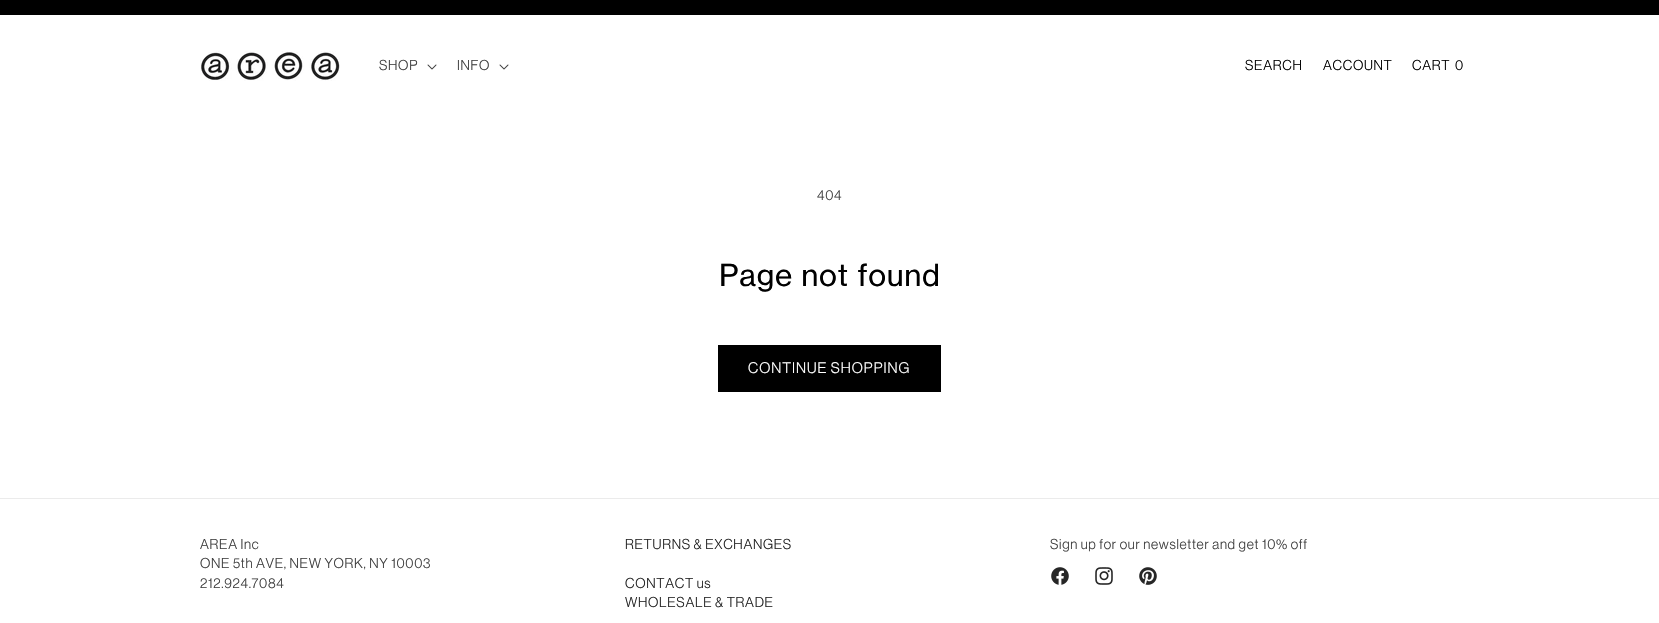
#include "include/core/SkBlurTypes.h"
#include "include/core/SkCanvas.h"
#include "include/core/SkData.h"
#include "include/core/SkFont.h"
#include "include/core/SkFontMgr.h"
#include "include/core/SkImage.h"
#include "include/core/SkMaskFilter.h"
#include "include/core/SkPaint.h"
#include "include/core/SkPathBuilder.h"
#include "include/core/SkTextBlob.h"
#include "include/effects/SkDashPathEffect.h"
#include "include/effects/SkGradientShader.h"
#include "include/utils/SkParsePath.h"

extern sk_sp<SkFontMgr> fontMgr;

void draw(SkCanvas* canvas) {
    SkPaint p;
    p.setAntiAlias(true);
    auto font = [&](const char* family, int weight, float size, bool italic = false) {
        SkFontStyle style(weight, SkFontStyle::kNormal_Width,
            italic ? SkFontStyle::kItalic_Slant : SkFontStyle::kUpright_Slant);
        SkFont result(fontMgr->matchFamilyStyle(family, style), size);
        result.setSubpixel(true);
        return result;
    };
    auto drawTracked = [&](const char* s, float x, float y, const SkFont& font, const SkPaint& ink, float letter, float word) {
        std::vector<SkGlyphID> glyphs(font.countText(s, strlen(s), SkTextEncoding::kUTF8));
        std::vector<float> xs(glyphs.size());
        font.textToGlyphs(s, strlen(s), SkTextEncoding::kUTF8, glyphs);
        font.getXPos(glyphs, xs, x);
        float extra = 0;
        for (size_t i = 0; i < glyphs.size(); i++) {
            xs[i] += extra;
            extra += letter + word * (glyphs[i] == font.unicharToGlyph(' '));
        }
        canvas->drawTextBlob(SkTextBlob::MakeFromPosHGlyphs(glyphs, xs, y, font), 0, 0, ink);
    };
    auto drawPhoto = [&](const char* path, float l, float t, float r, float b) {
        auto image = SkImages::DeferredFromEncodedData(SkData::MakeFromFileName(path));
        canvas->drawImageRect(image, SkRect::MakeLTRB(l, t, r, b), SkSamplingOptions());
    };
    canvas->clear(0xFFFFFFFF);
    p.setColor(0xFF000000);
    canvas->drawRect(SkRect::MakeLTRB(0, 0, 1659, 15), p);
    drawPhoto("media/1.png", 200, 51, 340, 81);
    auto font1 = font("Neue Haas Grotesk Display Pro", 400, 14);
    p.setColor(0xFF404040);
    drawTracked("SHOP", 379, 70, font1, p, 0.7f, 0);
    drawPhoto("media/2.png", 427, 64, 437, 70);
    drawTracked("INFO", 457, 70, font1, p, 0.7f, 0);
    drawPhoto("media/2.png", 499, 64, 509, 70);
    p.setColor(0xFF000000);
    {
        const struct { const char* s; float x, y; } items[] = {
            {"SEARCH", 1245, 70},
            {"ACCOUNT", 1323, 70},
            {"CART", 1412, 70},
            {"0", 1455, 70},
        };
        for (auto [s, x, y] : items) {
            drawTracked(s, x, y, font1, p, 0.7f, 0);
        }
    }
    p.setColor(0xFF404040);
    drawTracked("404", 817, 200, font1, p, 0.7f, 0);
    auto font2 = font("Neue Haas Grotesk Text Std", 400, 30);
    p.setColor(0xFF000000);
    drawTracked("Page not found", 719, 286, font2, p, 0.6f, 0);
    canvas->drawRect(SkRect::MakeLTRB(718, 345, 941, 392), p);
    auto font3 = font("Neue Haas Grotesk Display Pro", 400, 15);
    p.setColor(0xFFFFFFFF);
    drawTracked("CONTINUE SHOPPING", 748, 373, font3, p, 1, 0);
    p.setColor(0xFFEBEBEB);
    canvas->drawRect(SkRect::MakeLTRB(0, 498, 1659, 499), p);
    p.setColor(0xFF404040);
    {
        const struct { const char* s; float x, y; } items[] = {
            {"AREA Inc", 200, 549},
            {"ONE 5th AVE, NEW YORK, NY 10003", 200, 568},
            {"212.924.7084", 200, 588},
        };
        for (auto [s, x, y] : items) {
            drawTracked(s, x, y, font1, p, 0.7f, 0);
        }
    }
    p.setColor(0xFF262626);
    {
        const struct { const char* s; float x, y; } items[] = {
            {"RETURNS & EXCHANGES", 625, 549},
            {"CONTACT us", 625, 588},
            {"WHOLESALE & TRADE", 625, 607},
        };
        for (auto [s, x, y] : items) {
            drawTracked(s, x, y, font1, p, 0.7f, 0);
        }
    }
    p.setColor(0xFF404040);
    drawTracked("Sign up for our newsletter and get 10% off", 1050, 549, font1, p, 0.7f, 0);
    drawPhoto("media/3.png", 1051, 567, 1069, 585);
    drawPhoto("media/4.png", 1095, 567, 1113, 585);
    drawPhoto("media/5.png", 1139, 567, 1157, 585);
}
